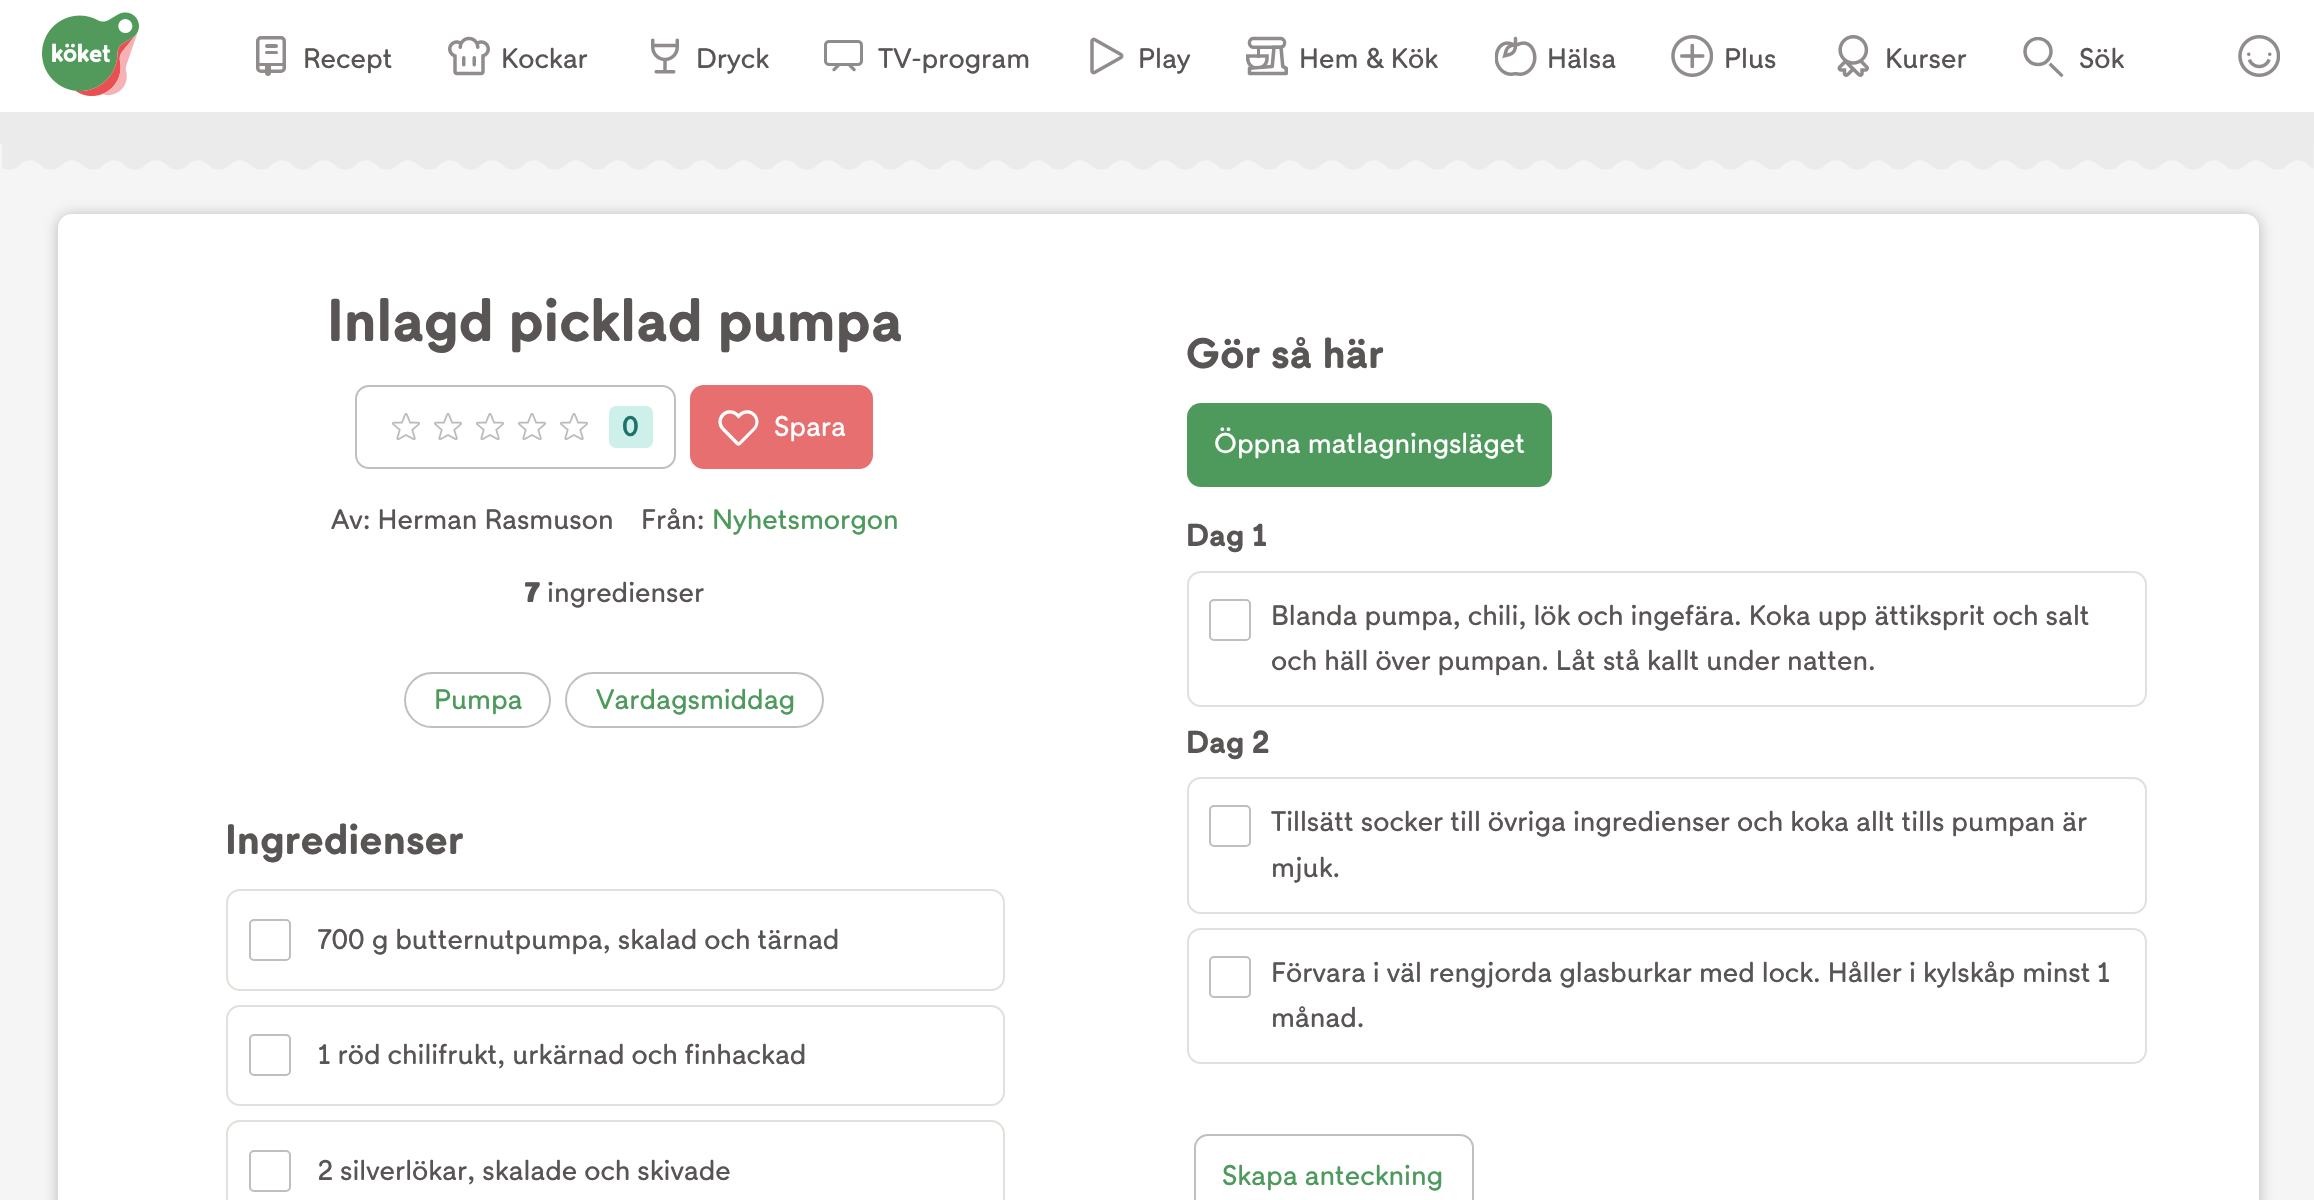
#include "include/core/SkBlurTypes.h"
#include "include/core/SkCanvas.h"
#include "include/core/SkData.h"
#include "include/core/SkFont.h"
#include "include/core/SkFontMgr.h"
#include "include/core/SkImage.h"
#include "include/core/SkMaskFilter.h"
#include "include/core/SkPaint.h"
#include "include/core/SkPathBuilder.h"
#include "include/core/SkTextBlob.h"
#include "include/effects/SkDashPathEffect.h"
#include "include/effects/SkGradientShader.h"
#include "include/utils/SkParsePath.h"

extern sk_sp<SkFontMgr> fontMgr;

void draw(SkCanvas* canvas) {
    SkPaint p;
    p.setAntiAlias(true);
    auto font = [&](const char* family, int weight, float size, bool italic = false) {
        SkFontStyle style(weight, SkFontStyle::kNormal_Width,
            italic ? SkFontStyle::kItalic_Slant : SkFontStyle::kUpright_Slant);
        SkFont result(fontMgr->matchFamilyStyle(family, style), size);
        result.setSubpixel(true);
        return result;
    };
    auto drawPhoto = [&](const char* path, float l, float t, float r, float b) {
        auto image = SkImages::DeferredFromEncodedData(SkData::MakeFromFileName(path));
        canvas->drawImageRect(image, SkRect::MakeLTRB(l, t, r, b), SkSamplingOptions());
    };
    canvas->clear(0xFFF5F5F5);
    p.setColor(0xFFFFFFFF);
    canvas->drawRect(SkRect::MakeLTRB(0, 0, 2314, 112), p);
    drawPhoto("media/1.png", 42, 12, 139, 97);
    p.setStyle(SkPaint::kStroke_Style);
    p.setStrokeWidth(3.5f);
    p.setColor(0xFF918C8C);
    canvas->drawRoundRect(SkRect::MakeLTRB(257.75f, 37.75f, 284.25f, 71.25f), 3.25f, 3.25f, p);
    p.setStyle(SkPaint::kFill_Style);
    canvas->drawRoundRect(SkRect::MakeLTRB(265, 44, 278, 48), 2, 2, p);
    canvas->drawRoundRect(SkRect::MakeLTRB(265, 51, 278, 54), 1.5f, 1.5f, p);
    canvas->drawRoundRect(SkRect::MakeLTRB(258, 63, 285, 66), 1.5f, 1.5f, p);
    canvas->drawRoundRect(SkRect::MakeLTRB(265, 63, 271, 76), 3, 3, p);
    auto font1 = font("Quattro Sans", 400, 28);
    p.setColor(0xFF5A5555);
    canvas->drawString("Recept", 303, 68, font1, p);
    drawPhoto("media/2.png", 448, 36, 490, 76);
    canvas->drawString("Kockar", 501, 68, font1, p);
    drawPhoto("media/3.png", 651, 38, 679, 74);
    canvas->drawString("Dryck", 696, 68, font1, p);
    drawPhoto("media/4.png", 824, 40, 863, 72);
    canvas->drawString("TV-program", 878, 68, font1, p);
    p.setStyle(SkPaint::kStroke_Style);
    p.setColor(0xFF918C8C);
    canvas->drawPath(SkPathBuilder().moveTo(1092, 71).lineTo(1092, 41).cubicTo(1092, 40, 1093.5f, 39, 1094.5f, 39.5f).lineTo(1121, 54.5f).cubicTo(1122, 55, 1122, 57, 1121, 57.5f).lineTo(1094.5f, 72.5f).cubicTo(1093.5f, 73, 1092, 72.5f, 1092, 71).close().detach(), p);
    p.setStyle(SkPaint::kFill_Style);
    p.setColor(0xFF5A5555);
    canvas->drawString("Play", 1138, 68, font1, p);
    drawPhoto("media/5.png", 1246, 36, 1288, 76);
    canvas->drawString("Hem & Kök", 1299, 68, font1, p);
    drawPhoto("media/6.png", 1495, 36, 1537, 76);
    canvas->drawString("Hälsa", 1547, 68, font1, p);
    drawPhoto("media/7.png", 1671, 35, 1713, 77);
    canvas->drawString("Plus", 1724, 68, font1, p);
    drawPhoto("media/8.png", 1837, 35, 1869, 77);
    canvas->drawString("Kurser", 1885, 68, font1, p);
    canvas->save();
    canvas->clipRect(SkRect::MakeLTRB(2023, 37, 2065, 79));
    p.setStyle(SkPaint::kStroke_Style);
    p.setColor(0xFF918C8C);
    canvas->drawCircle(2038, 51.5f, 13, p);
    canvas->restore();
    p.setStyle(SkPaint::kFill_Style);
    canvas->drawPath(SkPathBuilder(SkPathFillType::kEvenOdd).moveTo(2060.5f, 76.5f).lineTo(2048.5f, 65).lineTo(2051, 62.5f).lineTo(2062.5f, 74).cubicTo(2063.5f, 74.5f, 2063.5f, 76, 2062.5f, 76.5f).cubicTo(2062, 77, 2061, 77, 2060.5f, 76.5f).close().detach(), p);
    p.setColor(0xFF5A5555);
    canvas->drawString("Sök", 2079, 68, font1, p);
    drawPhoto("media/9.png", 2238, 35, 2280, 77);
    p.setColor(0xFFEBEBEB);
    canvas->drawRect(SkRect::MakeLTRB(0, 112, 2314, 144), p);
    drawPhoto("media/10.png", 2, 144, 2314, 170);
    p.setColor(0x40000000);
    p.setMaskFilter(SkMaskFilter::MakeBlur(kNormal_SkBlurStyle, 7));
    canvas->drawRoundRect(SkRect::MakeLTRB(58, 215, 2259, 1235), 14, 14, p);
    p.setMaskFilter(nullptr);
    p.setColor(0xFFFFFFFF);
    canvas->drawRoundRect(SkRect::MakeLTRB(58, 214, 2259, 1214), 14, 14, p);
    auto font2 = font("Quattro Sans", 700, 59.5f);
    p.setColor(0xFF5A5555);
    canvas->drawString("Inlagd picklad pumpa", 327, 341, font2, p);
    p.setStyle(SkPaint::kStroke_Style);
    p.setStrokeWidth(2);
    p.setColor(0xFFC3BEBE);
    canvas->drawRoundRect(SkRect::MakeLTRB(356, 386, 675, 468), 13, 13, p);
    drawPhoto("media/11.png", 392, 413, 420, 440);
    drawPhoto("media/11.png", 434, 413, 462, 440);
    drawPhoto("media/11.png", 476, 413, 504, 440);
    drawPhoto("media/11.png", 518, 413, 546, 440);
    drawPhoto("media/11.png", 560, 413, 588, 440);
    p.setStyle(SkPaint::kFill_Style);
    p.setColor(0xFFCDF1EA);
    canvas->drawRoundRect(SkRect::MakeLTRB(609, 406, 653, 448), 7, 7, p);
    auto font3 = font("Quattro Sans", 500, 28);
    p.setColor(0xFF1E726A);
    canvas->drawString("0", 622, 436, font3, p);
    p.setColor(0xFFE76F6F);
    canvas->drawRoundRect(SkRect::MakeLTRB(690, 385, 873, 469), 14, 14, p);
    drawPhoto("media/12.png", 718, 410, 759, 446);
    p.setColor(0xFFFFFFFF);
    canvas->drawString("Spara", 774, 436, font1, p);
    p.setColor(0xFF5A5555);
    canvas->drawString("Av: Herman Rasmuson", 331, 529, font1, p);
    canvas->drawString("Från:", 641, 529, font1, p);
    p.setColor(0xFF4E9A5D);
    canvas->drawString("Nyhetsmorgon", 712, 529, font1, p);
    auto font4 = font("Quattro Sans", 800, 28);
    p.setColor(0xFF5A5555);
    canvas->drawString("7", 525, 602, font4, p);
    canvas->drawString("ingredienser", 547, 602, font1, p);
    p.setStyle(SkPaint::kStroke_Style);
    p.setColor(0xFFC3BEBE);
    canvas->drawRoundRect(SkRect::MakeLTRB(405, 673, 550, 727), 27, 27, p);
    p.setStyle(SkPaint::kFill_Style);
    p.setColor(0xFF4E9A5D);
    canvas->drawString("Pumpa", 434, 709, font1, p);
    p.setStyle(SkPaint::kStroke_Style);
    p.setColor(0xFFC3BEBE);
    canvas->drawRoundRect(SkRect::MakeLTRB(566, 673, 823, 727), 27, 27, p);
    p.setStyle(SkPaint::kFill_Style);
    p.setColor(0xFF4E9A5D);
    canvas->drawString("Vardagsmiddag", 596, 709, font1, p);
    auto font5 = font("Quattro Sans", 700, 42);
    p.setColor(0xFF5A5555);
    canvas->drawString("Ingredienser", 225, 854, font5, p);
    p.setStyle(SkPaint::kStroke_Style);
    p.setColor(0xFFE1E1DC);
    canvas->drawRoundRect(SkRect::MakeLTRB(227, 890, 1004, 990), 13, 13, p);
    p.setColor(0xFFC3BEBE);
    canvas->drawRoundRect(SkRect::MakeLTRB(250, 920, 290, 960), 4, 4, p);
    p.setStyle(SkPaint::kFill_Style);
    p.setColor(0xFF5A5555);
    canvas->drawString("700 g butternutpumpa, skalad och tärnad", 318, 949, font1, p);
    p.setStyle(SkPaint::kStroke_Style);
    p.setColor(0xFFE1E1DC);
    canvas->drawRoundRect(SkRect::MakeLTRB(227, 1006, 1004, 1105), 13, 13, p);
    p.setColor(0xFFC3BEBE);
    canvas->drawRoundRect(SkRect::MakeLTRB(250, 1035, 290, 1075), 4, 4, p);
    p.setStyle(SkPaint::kFill_Style);
    p.setColor(0xFF5A5555);
    canvas->drawString("1 röd chilifrukt, urkärnad och finhackad", 318, 1064, font1, p);
    p.setStyle(SkPaint::kStroke_Style);
    p.setColor(0xFFE1E1DC);
    canvas->drawRoundRect(SkRect::MakeLTRB(227, 1121, 1004, 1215), 13, 13, p);
    p.setColor(0xFFC3BEBE);
    canvas->drawRoundRect(SkRect::MakeLTRB(250, 1151, 290, 1191), 4, 4, p);
    p.setStyle(SkPaint::kFill_Style);
    p.setColor(0xFF5A5555);
    canvas->drawString("2 silverlökar, skalade och skivade", 318, 1180, font1, p);
    canvas->drawString("Gör så här", 1186, 368, font5, p);
    p.setColor(0xFF4E9A5D);
    canvas->drawRoundRect(SkRect::MakeLTRB(1187, 403, 1552, 487), 14, 14, p);
    p.setColor(0xFFFFFFFF);
    canvas->drawString("Öppna matlagningsläget", 1214, 453, font1, p);
    auto font6 = font("Quattro Sans", 700, 31.5f);
    p.setColor(0xFF5A5555);
    canvas->drawString("Dag 1", 1186, 546, font6, p);
    p.setStyle(SkPaint::kStroke_Style);
    p.setColor(0xFFE1E1DC);
    canvas->drawRoundRect(SkRect::MakeLTRB(1188, 572, 2146, 706), 13, 13, p);
    p.setColor(0xFFC3BEBE);
    canvas->drawRoundRect(SkRect::MakeLTRB(1210, 600, 1250, 640), 4, 4, p);
    p.setStyle(SkPaint::kFill_Style);
    p.setColor(0xFF5A5555);
    canvas->drawString("Blanda pumpa, chili, lök och ingefära. Koka upp ättiksprit och salt", 1271, 625, font1, p);
    canvas->drawString("och häll över pumpan. Låt stå kallt under natten.", 1271, 670, font1, p);
    canvas->drawString("Dag 2", 1186, 753, font6, p);
    p.setStyle(SkPaint::kStroke_Style);
    p.setColor(0xFFE1E1DC);
    canvas->drawRoundRect(SkRect::MakeLTRB(1188, 778, 2146, 913), 13, 13, p);
    p.setColor(0xFFC3BEBE);
    canvas->drawRoundRect(SkRect::MakeLTRB(1210, 806, 1250, 846), 4, 4, p);
    p.setStyle(SkPaint::kFill_Style);
    p.setColor(0xFF5A5555);
    canvas->drawString("Tillsätt socker till övriga ingredienser och koka allt tills pumpan är", 1271, 831, font1, p);
    canvas->drawString("mjuk.", 1271, 877, font1, p);
    p.setStyle(SkPaint::kStroke_Style);
    p.setColor(0xFFE1E1DC);
    canvas->drawRoundRect(SkRect::MakeLTRB(1188, 929, 2146, 1063), 13, 13, p);
    p.setColor(0xFFC3BEBE);
    canvas->drawRoundRect(SkRect::MakeLTRB(1210, 957, 1250, 997), 4, 4, p);
    p.setStyle(SkPaint::kFill_Style);
    p.setColor(0xFF5A5555);
    canvas->drawString("Förvara i väl rengjorda glasburkar med lock. Håller i kylskåp minst 1", 1271, 982, font1, p);
    canvas->drawString("månad.", 1271, 1027, font1, p);
    p.setStyle(SkPaint::kStroke_Style);
    p.setColor(0xFFC3BEBE);
    canvas->drawRoundRect(SkRect::MakeLTRB(1195, 1135, 1473, 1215), 13, 13, p);
    p.setStyle(SkPaint::kFill_Style);
    p.setColor(0xFF4E9A5D);
    canvas->drawString("Skapa anteckning", 1222, 1185, font1, p);
}
